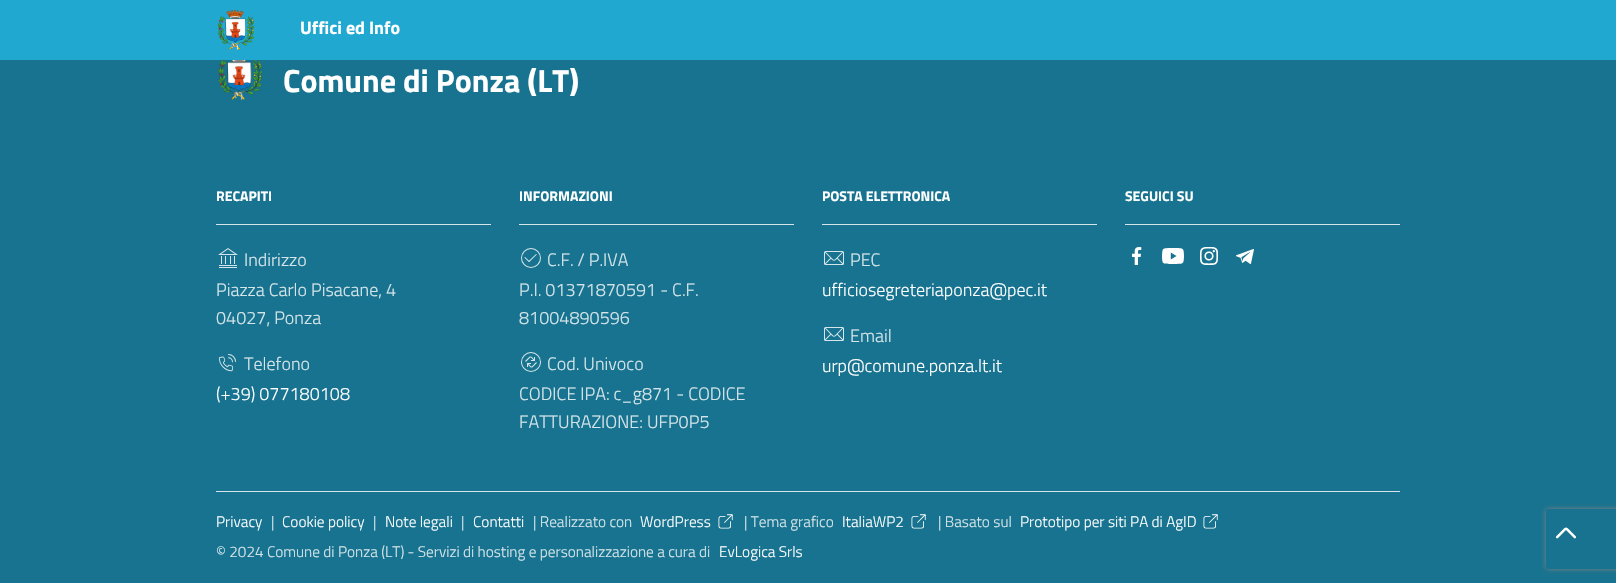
#include "include/core/SkBlurTypes.h"
#include "include/core/SkCanvas.h"
#include "include/core/SkData.h"
#include "include/core/SkFont.h"
#include "include/core/SkFontMgr.h"
#include "include/core/SkImage.h"
#include "include/core/SkMaskFilter.h"
#include "include/core/SkPaint.h"
#include "include/core/SkPathBuilder.h"
#include "include/core/SkTextBlob.h"
#include "include/effects/SkDashPathEffect.h"
#include "include/effects/SkGradientShader.h"
#include "include/utils/SkParsePath.h"

extern sk_sp<SkFontMgr> fontMgr;

void draw(SkCanvas* canvas) {
    SkPaint p;
    p.setAntiAlias(true);
    auto font = [&](const char* family, int weight, float size, bool italic = false) {
        SkFontStyle style(weight, SkFontStyle::kNormal_Width,
            italic ? SkFontStyle::kItalic_Slant : SkFontStyle::kUpright_Slant);
        SkFont result(fontMgr->matchFamilyStyle(family, style), size);
        result.setSubpixel(true);
        return result;
    };
    auto drawPhoto = [&](const char* path, float l, float t, float r, float b) {
        auto image = SkImages::DeferredFromEncodedData(SkData::MakeFromFileName(path));
        canvas->drawImageRect(image, SkRect::MakeLTRB(l, t, r, b), SkSamplingOptions());
    };
    canvas->clear(0xFF17738F);
    p.setColor(0xFF21A8D1);
    canvas->drawRect(SkRect::MakeLTRB(0, 0, 1616, 60), p);
    drawPhoto("media/1.png", 217, 10, 255, 50);
    auto font1 = font("Titillium Web", 700, 18);
    p.setColor(0xFFFFFFFF);
    canvas->drawString("Uffici ed Info", 300, 34, font1, p);
    drawPhoto("media/2.png", 217, 60, 263, 100);
    auto font2 = font("Titillium Web", 700, 32);
    canvas->drawString("Comune di Ponza (LT)", 283, 92, font2, p);
    p.setColor(0xFFD5E5E9);
    canvas->drawRect(SkRect::MakeLTRB(216, 224, 491, 225), p);
    auto font3 = font("Titillium Web", 700, 14);
    p.setColor(0xFFFFFFFF);
    canvas->drawString("RECAPITI", 216, 201, font3, p);
    drawPhoto("media/3.png", 218, 248, 238, 268);
    auto font4 = font("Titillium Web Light", 300, 18);
    p.setColor(0xFFD5E5E9);
    {
        const struct { const char* s; float x, y; } items[] = {
            {"Indirizzo", 244, 266},
            {"Piazza Carlo Pisacane, 4", 216, 296},
            {"04027, Ponza", 216, 324},
        };
        for (auto [s, x, y] : items) {
            canvas->drawString(s, x, y, font4, p);
        }
    }
    drawPhoto("media/4.png", 218, 354, 236, 372);
    canvas->drawString("Telefono", 244, 370, font4, p);
    p.setColor(0xFFFFFFFF);
    canvas->drawString("(+39) 077180108", 216, 400, font4, p);
    p.setColor(0xFFD5E5E9);
    canvas->drawRect(SkRect::MakeLTRB(519, 224, 794, 225), p);
    p.setColor(0xFFFFFFFF);
    canvas->drawString("INFORMAZIONI", 519, 201, font3, p);
    drawPhoto("media/5.png", 521, 248, 541, 268);
    p.setColor(0xFFD5E5E9);
    {
        const struct { const char* s; float x, y; } items[] = {
            {"C.F. / P.IVA", 547, 266},
            {"P.I. 01371870591 - C.F.", 519, 296},
            {"81004890596", 519, 324},
        };
        for (auto [s, x, y] : items) {
            canvas->drawString(s, x, y, font4, p);
        }
    }
    drawPhoto("media/6.png", 521, 352, 541, 372);
    {
        const struct { const char* s; float x, y; } items[] = {
            {"Cod. Univoco", 547, 370},
            {"CODICE IPA: c_g871 - CODICE", 519, 400},
            {"FATTURAZIONE: UFP0P5", 519, 428},
        };
        for (auto [s, x, y] : items) {
            canvas->drawString(s, x, y, font4, p);
        }
    }
    canvas->drawRect(SkRect::MakeLTRB(822, 224, 1097, 225), p);
    p.setColor(0xFFFFFFFF);
    canvas->drawString("POSTA ELETTRONICA", 822, 201, font3, p);
    drawPhoto("media/7.png", 824, 251, 844, 265);
    p.setColor(0xFFD5E5E9);
    canvas->drawString("PEC", 850, 266, font4, p);
    p.setColor(0xFFFFFFFF);
    canvas->drawString("ufficiosegreteriaponza@pec.it", 822, 296, font4, p);
    drawPhoto("media/7.png", 824, 327, 844, 341);
    p.setColor(0xFFD5E5E9);
    canvas->drawString("Email", 850, 342, font4, p);
    p.setColor(0xFFFFFFFF);
    canvas->drawString("urp@comune.ponza.lt.it", 822, 372, font4, p);
    p.setColor(0xFFD5E5E9);
    canvas->drawRect(SkRect::MakeLTRB(1125, 224, 1400, 225), p);
    p.setColor(0xFFFFFFFF);
    canvas->drawString("SEGUICI SU", 1125, 201, font3, p);
    drawPhoto("media/8.png", 1132, 247, 1142, 265);
    drawPhoto("media/9.png", 1162, 248, 1184, 264);
    drawPhoto("media/10.png", 1200, 247, 1218, 265);
    drawPhoto("media/11.png", 1236, 249, 1254, 264);
    p.setColor(0xFFD5E5E9);
    canvas->drawRect(SkRect::MakeLTRB(216, 491, 1400, 492), p);
    auto font5 = font("Titillium Web Light", 300, 15.3f);
    p.setColor(0xFFFFFFFF);
    canvas->drawString("Privacy", 216, 527, font5, p);
    p.setColor(0xFFD5E5E9);
    canvas->drawString("|", 271, 527, font5, p);
    p.setColor(0xFFFFFFFF);
    canvas->drawString("Cookie policy", 282, 527, font5, p);
    p.setColor(0xFFD5E5E9);
    canvas->drawString("|", 373, 527, font5, p);
    p.setColor(0xFFFFFFFF);
    canvas->drawString("Note legali", 385, 527, font5, p);
    p.setColor(0xFFD5E5E9);
    canvas->drawString("|", 461, 527, font5, p);
    p.setColor(0xFFFFFFFF);
    canvas->drawString("Contatti", 473, 527, font5, p);
    p.setColor(0xFFD5E5E9);
    canvas->drawString("| Realizzato con", 533, 527, font5, p);
    p.setColor(0xFFFFFFFF);
    canvas->drawString("WordPress", 640, 527, font5, p);
    drawPhoto("media/12.png", 718, 514, 733, 529);
    p.setColor(0xFFD5E5E9);
    canvas->drawString("| Tema grafico", 744, 527, font5, p);
    p.setColor(0xFFFFFFFF);
    canvas->drawString("ItaliaWP2", 842, 527, font5, p);
    drawPhoto("media/12.png", 911, 514, 926, 529);
    p.setColor(0xFFD5E5E9);
    canvas->drawString("| Basato sul", 938, 527, font5, p);
    p.setColor(0xFFFFFFFF);
    canvas->drawString("Prototipo per siti PA di AgID", 1020, 527, font5, p);
    drawPhoto("media/12.png", 1203, 514, 1218, 529);
    p.setColor(0xFFD5E5E9);
    canvas->drawString("© 2024 Comune di Ponza (LT) - Servizi di hosting e personalizzazione a cura di", 216, 557, font5, p);
    p.setColor(0xFFFFFFFF);
    canvas->drawString("EvLogica Srls", 719, 557, font5, p);
    drawPhoto("media/13.png", 1555, 527, 1577, 539);
    canvas->save();
    canvas->clipPath(SkPathBuilder(SkPathFillType::kEvenOdd).moveTo(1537, 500).lineTo(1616, 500).lineTo(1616, 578).lineTo(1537, 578).close().moveTo(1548, 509).lineTo(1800, 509).cubicTo(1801, 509, 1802, 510, 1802, 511).lineTo(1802, 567).cubicTo(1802, 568, 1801, 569, 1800, 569).lineTo(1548, 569).cubicTo(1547, 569, 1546, 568, 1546, 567).lineTo(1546, 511).cubicTo(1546, 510, 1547, 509, 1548, 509).close().detach(), true);
    p.setColor(0xFF808080);
    p.setMaskFilter(SkMaskFilter::MakeBlur(kNormal_SkBlurStyle, 2.5f));
    canvas->drawRoundRect(SkRect::MakeLTRB(1546, 509, 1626, 569), 2, 2, p);
    p.setMaskFilter(nullptr);
    canvas->restore();
}
